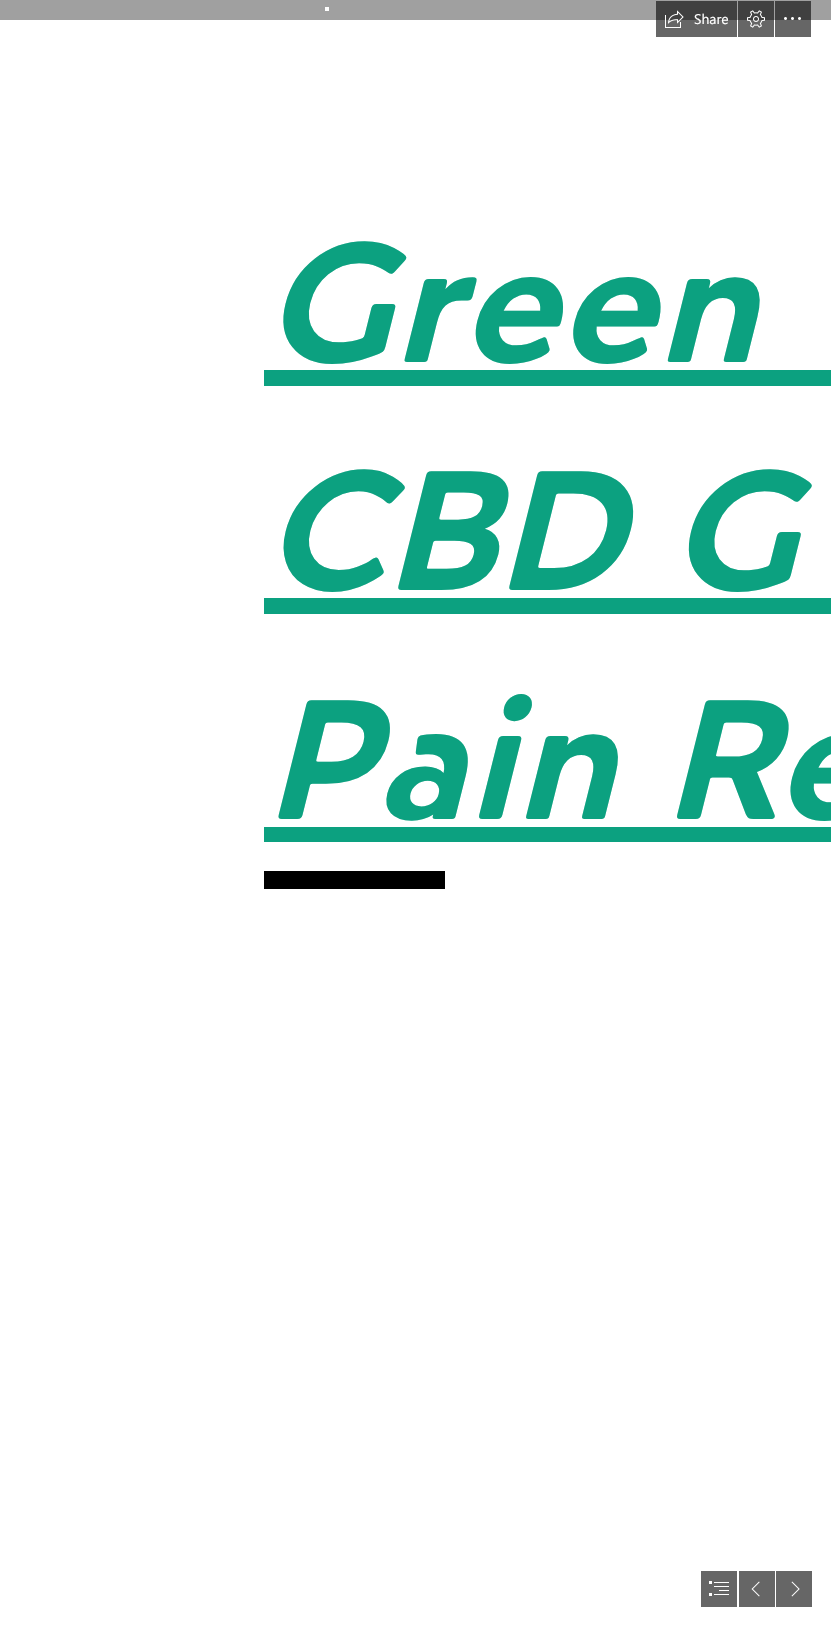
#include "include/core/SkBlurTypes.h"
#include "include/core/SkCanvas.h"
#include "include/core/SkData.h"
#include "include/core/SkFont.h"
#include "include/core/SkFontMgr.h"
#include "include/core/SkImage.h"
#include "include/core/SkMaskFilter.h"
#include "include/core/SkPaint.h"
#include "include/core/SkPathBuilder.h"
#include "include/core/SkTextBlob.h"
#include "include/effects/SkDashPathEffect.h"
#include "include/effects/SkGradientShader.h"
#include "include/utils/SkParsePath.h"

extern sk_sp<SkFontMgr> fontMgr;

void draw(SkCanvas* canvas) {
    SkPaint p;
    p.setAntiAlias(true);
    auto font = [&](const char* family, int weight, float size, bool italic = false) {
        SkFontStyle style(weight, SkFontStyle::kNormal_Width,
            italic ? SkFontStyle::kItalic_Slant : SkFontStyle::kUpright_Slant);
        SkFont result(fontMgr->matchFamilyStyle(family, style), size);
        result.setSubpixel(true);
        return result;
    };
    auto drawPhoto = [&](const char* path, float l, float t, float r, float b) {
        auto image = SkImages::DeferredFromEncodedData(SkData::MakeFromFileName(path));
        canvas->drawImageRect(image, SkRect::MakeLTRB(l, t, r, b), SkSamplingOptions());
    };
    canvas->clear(0xFFFFFFFF);
    p.setColor(0xFFA0A0A0);
    canvas->drawRect(SkRect::MakeLTRB(0, 0, 831, 20), p);
    p.setColor(0x99000000);
    canvas->drawRect(SkRect::MakeLTRB(656, 1, 737, 37), p);
    drawPhoto("media/1.png", 665, 10, 684, 28);
    auto font1 = font("Segoe UI", 400, 14);
    p.setColor(0xFFFFFFFF);
    canvas->drawString("Share", 694, 24, font1, p);
    p.setColor(0x99000000);
    canvas->drawRect(SkRect::MakeLTRB(738, 1, 774, 37), p);
    drawPhoto("media/2.png", 747, 10, 765, 28);
    canvas->drawRect(SkRect::MakeLTRB(775, 1, 811, 37), p);
    drawPhoto("media/3.png", 784, 17, 801, 20);
    p.setColor(0xFFFFFFFF);
    canvas->drawRect(SkRect::MakeLTRB(325, 7, 329, 11), p);
    auto font2 = font("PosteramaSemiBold", 600, 169.5f, true);
    p.setColor(0xFF0CA180);
    canvas->drawString("Green", 264, 362, font2, p);
    canvas->drawRect(SkRect::MakeLTRB(264, 370, 831, 386), p);
    canvas->drawString("CBD G", 264, 590, font2, p);
    canvas->drawRect(SkRect::MakeLTRB(264, 598, 831, 614), p);
    canvas->drawString("Pain Re", 264, 819, font2, p);
    {
        const struct { float l, t, r, b; SkColor color; } items[] = {
            {264, 827, 831, 842, 0xFF0CA180},
            {264, 871, 445, 889, 0xFF000000},
            {701, 1571, 737, 1607, 0xFF666666},
        };
        for (auto [l, t, r, b, color] : items) {
            p.setColor(color);
            canvas->drawRect(SkRect::MakeLTRB(l, t, r, b), p);
        }
    }
    drawPhoto("media/4.png", 709, 1581, 729, 1596);
    canvas->drawRect(SkRect::MakeLTRB(739, 1571, 775, 1607), p);
    drawPhoto("media/5.png", 751, 1581, 760, 1597);
    canvas->drawRect(SkRect::MakeLTRB(776, 1571, 812, 1607), p);
    drawPhoto("media/6.png", 791, 1581, 800, 1597);
}
